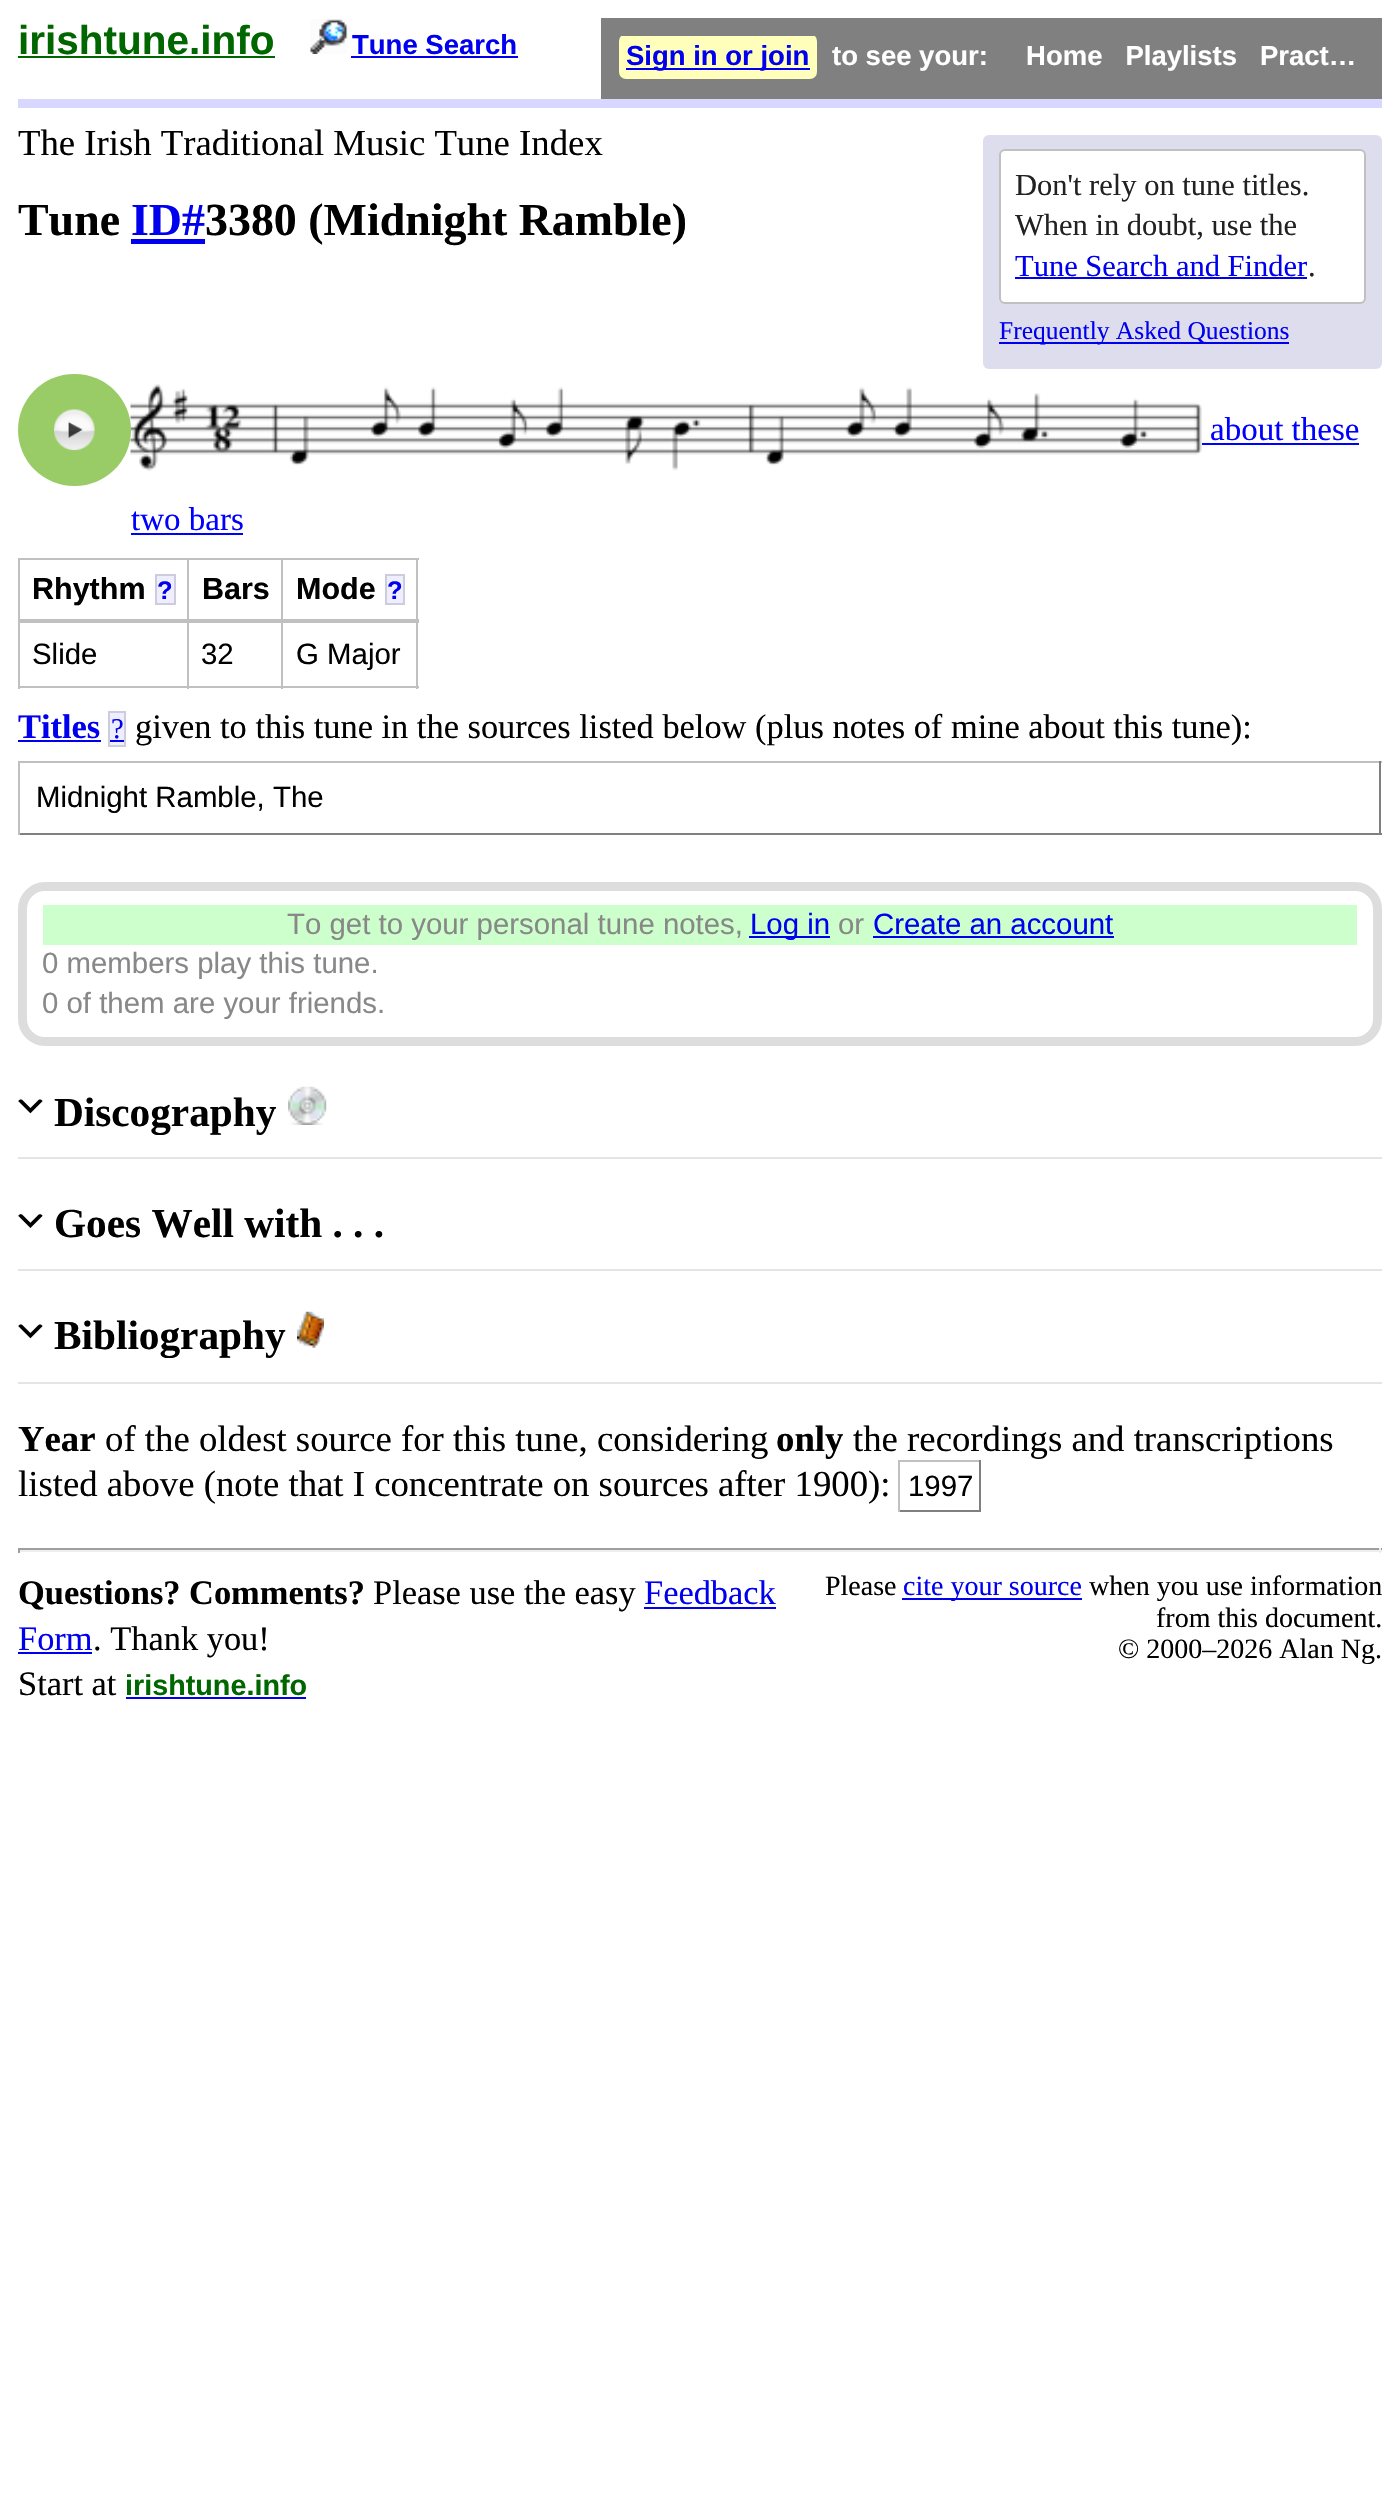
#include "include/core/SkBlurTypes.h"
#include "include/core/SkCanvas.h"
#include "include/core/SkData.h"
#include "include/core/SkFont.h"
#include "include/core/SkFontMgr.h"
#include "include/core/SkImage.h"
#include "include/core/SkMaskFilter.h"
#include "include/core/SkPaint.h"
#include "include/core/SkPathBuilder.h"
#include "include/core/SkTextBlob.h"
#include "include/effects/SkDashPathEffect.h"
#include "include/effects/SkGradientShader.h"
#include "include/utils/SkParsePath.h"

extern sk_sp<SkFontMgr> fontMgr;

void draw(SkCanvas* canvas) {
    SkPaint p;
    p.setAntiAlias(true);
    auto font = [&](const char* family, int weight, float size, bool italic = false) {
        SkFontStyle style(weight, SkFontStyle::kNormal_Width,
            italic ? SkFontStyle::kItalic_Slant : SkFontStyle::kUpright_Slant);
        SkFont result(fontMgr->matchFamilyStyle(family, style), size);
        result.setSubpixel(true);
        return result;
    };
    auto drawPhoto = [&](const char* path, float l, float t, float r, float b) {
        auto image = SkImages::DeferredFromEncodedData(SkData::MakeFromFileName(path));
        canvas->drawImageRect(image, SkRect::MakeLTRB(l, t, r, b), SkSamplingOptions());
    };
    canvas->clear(0xFFFFFFFF);
    p.setColor(0xFFD7D7FF);
    canvas->drawRect(SkRect::MakeLTRB(18, 99, 1382, 108), p);
    auto font1 = font("Liberation Sans", 700, 40.5f);
    p.setColor(0xFF006600);
    canvas->drawString("irishtune.info", 18, 54, font1, p);
    canvas->drawRect(SkRect::MakeLTRB(18, 56, 275, 58), p);
    drawPhoto("media/1.png", 310, 19, 348, 54);
    auto font2 = font("Liberation Sans", 700, 27.5f);
    p.setColor(0xFF0000EE);
    canvas->drawString("Tune Search", 352, 54, font2, p);
    canvas->drawRect(SkRect::MakeLTRB(351, 56, 518, 58), p);
    p.setColor(0xFF808080);
    canvas->drawRect(SkRect::MakeLTRB(601, 18, 1382, 99), p);
    canvas->save();
    canvas->clipRect(SkRect::MakeLTRB(619, 36, 1364, 81));
    p.setColor(0xFFFFFFBB);
    canvas->drawRoundRect(SkRect::MakeLTRB(619, 34, 817, 79), 7, 7, p);
    canvas->restore();
    p.setColor(0xFF0000EE);
    canvas->drawRect(SkRect::MakeLTRB(626, 68, 810, 70), p);
    canvas->drawString("Sign in or join", 626, 65, font2, p);
    p.setColor(0xFFFFFFFF);
    canvas->drawString("to see your:     Home   Playlists   Pract…", 832, 65, font2, p);
    auto font3 = font("Liberation Serif", 400, 36.75f);
    p.setColor(0xFF000000);
    canvas->drawString("The Irish Traditional Music Tune Index", 18, 155, font3, p);
    auto font4 = font("Liberation Serif", 700, 45.9f);
    canvas->drawString("Tune", 18, 235, font4, p);
    p.setColor(0xFF0000EE);
    canvas->drawString("ID#", 131, 235, font4, p);
    canvas->drawRect(SkRect::MakeLTRB(131, 239, 205, 244), p);
    p.setColor(0xFF000000);
    canvas->drawString("3380 (Midnight Ramble)", 205, 235, font4, p);
    p.setColor(0xFFDDDDEE);
    canvas->drawRoundRect(SkRect::MakeLTRB(983, 135, 1382, 369), 6, 6, p);
    p.setColor(0xFFFFFFFF);
    canvas->drawRoundRect(SkRect::MakeLTRB(1000, 150, 1365, 303), 5, 5, p);
    p.setStyle(SkPaint::kStroke_Style);
    p.setStrokeWidth(2);
    p.setColor(0xFFC0C0C0);
    canvas->drawRoundRect(SkRect::MakeLTRB(1000, 150, 1365, 303), 5, 5, p);
    auto font5 = font("Liberation Serif", 400, 30.5f);
    p.setStyle(SkPaint::kFill_Style);
    p.setColor(0xFF222222);
    canvas->drawString("Don't rely on tune titles.", 1015, 195, font5, p);
    canvas->drawString("When in doubt, use the", 1015, 235, font5, p);
    p.setColor(0xFF0000EE);
    canvas->drawString("Tune Search and Finder", 1015, 276, font5, p);
    canvas->drawRect(SkRect::MakeLTRB(1015, 277, 1307, 279), p);
    p.setColor(0xFF222222);
    canvas->drawString(".", 1308, 276, font5, p);
    p.setColor(0xFF0000EE);
    canvas->drawRect(SkRect::MakeLTRB(999, 342, 1289, 344), p);
    auto font6 = font("Liberation Serif", 400, 25.5f);
    canvas->drawString("Frequently Asked Questions", 999, 339, font6, p);
    drawPhoto("media/3.png", 130, 384, 1202, 471);
    p.setColor(0xFF99CC66);
    canvas->drawRoundRect(SkRect::MakeLTRB(18, 374, 131, 486), 56, 56, p);
    drawPhoto("media/2.png", 54, 409, 95, 451);
    auto font7 = font("Liberation Serif", 400, 33);
    p.setColor(0xFF0000FF);
    canvas->drawString("about these", 1210, 440, font7, p);
    canvas->drawRect(SkRect::MakeLTRB(1202, 443, 1359, 445), p);
    canvas->drawString("two bars", 131, 530, font7, p);
    {
        const struct { float l, t, r, b; SkColor color; } items[] = {
            {131, 533, 243, 535, 0xFF0000FF},
            {281, 558, 419, 560, 0xFFC0C0C0},
            {416, 558, 418, 621, 0xFFC0C0C0},
            {281, 619, 419, 621, 0xFFC0C0C0},
            {281, 558, 283, 621, 0xFFC0C0C0},
            {187, 558, 284, 560, 0xFFC0C0C0},
            {187, 619, 284, 621, 0xFFC0C0C0},
            {187, 558, 189, 621, 0xFFC0C0C0},
            {18, 558, 189, 560, 0xFFC0C0C0},
            {18, 619, 189, 621, 0xFFC0C0C0},
            {18, 558, 20, 621, 0xFFC0C0C0},
        };
        for (auto [l, t, r, b, color] : items) {
            p.setColor(color);
            canvas->drawRect(SkRect::MakeLTRB(l, t, r, b), p);
        }
    }
    auto font8 = font("Liberation Sans", 700, 30.5f);
    p.setColor(0xFF000000);
    canvas->drawString("Rhythm", 32, 599, font8, p);
    p.setColor(0xFFEEEEFF);
    canvas->drawRect(SkRect::MakeLTRB(156, 575, 175, 604), p);
    p.setStyle(SkPaint::kStroke_Style);
    p.setColor(0xFFCCCCDD);
    canvas->drawRect(SkRect::MakeLTRB(156, 575, 175, 604), p);
    auto font9 = font("Liberation Sans", 700, 25.5f);
    p.setStyle(SkPaint::kFill_Style);
    p.setColor(0xFF0000EE);
    canvas->drawString("?", 157, 599, font9, p);
    p.setColor(0xFF000000);
    canvas->drawString("Bars", 202, 599, font8, p);
    canvas->drawString("Mode", 296, 599, font8, p);
    p.setColor(0xFFEEEEFF);
    canvas->drawRect(SkRect::MakeLTRB(386, 575, 404, 604), p);
    p.setStyle(SkPaint::kStroke_Style);
    p.setColor(0xFFCCCCDD);
    canvas->drawRect(SkRect::MakeLTRB(386, 575, 404, 604), p);
    p.setStyle(SkPaint::kFill_Style);
    p.setColor(0xFF0000EE);
    canvas->drawString("?", 387, 599, font9, p);
    {
        const struct { float l, t, r, b; SkColor color; } items[] = {
            {281, 621, 419, 623, 0xFFC0C0C0},
            {416, 621, 418, 689, 0xFFC0C0C0},
            {281, 686, 419, 688, 0xFFC0C0C0},
            {281, 621, 283, 689, 0xFFC0C0C0},
            {187, 621, 284, 623, 0xFFC0C0C0},
            {187, 686, 284, 688, 0xFFC0C0C0},
            {187, 621, 189, 689, 0xFFC0C0C0},
            {18, 621, 189, 623, 0xFFC0C0C0},
            {18, 686, 189, 688, 0xFFC0C0C0},
            {18, 621, 20, 689, 0xFFC0C0C0},
        };
        for (auto [l, t, r, b, color] : items) {
            p.setColor(color);
            canvas->drawRect(SkRect::MakeLTRB(l, t, r, b), p);
        }
    }
    auto font10 = font("Liberation Sans", 400, 29.4f);
    p.setColor(0xFF000000);
    {
        const struct { const char* s; float x, y; } items[] = {
            {"Slide", 32, 664},
            {"32", 201, 664},
            {"G Major", 296, 664},
        };
        for (auto [s, x, y] : items) {
            canvas->drawString(s, x, y, font10, p);
        }
    }
    auto font11 = font("Liberation Serif", 700, 34.4f);
    p.setColor(0xFF0000EE);
    canvas->drawString("Titles", 18, 738, font11, p);
    canvas->drawRect(SkRect::MakeLTRB(18, 740, 101, 742), p);
    p.setColor(0xFFEEEEFF);
    canvas->drawRect(SkRect::MakeLTRB(109, 712, 125, 746), p);
    p.setStyle(SkPaint::kStroke_Style);
    p.setColor(0xFFCCCCDD);
    canvas->drawRect(SkRect::MakeLTRB(109, 712, 125, 746), p);
    auto font12 = font("Liberation Serif", 400, 28.75f);
    p.setStyle(SkPaint::kFill_Style);
    p.setColor(0xFF0000EE);
    canvas->drawString("?", 111, 738, font12, p);
    canvas->drawRect(SkRect::MakeLTRB(110, 740, 124, 742), p);
    auto font13 = font("Liberation Serif", 400, 34.4f);
    p.setColor(0xFF000000);
    canvas->drawString("given to this tune in the sources listed below (plus notes of mine about this tune):", 135, 738, font13, p);
    {
        const struct { float l, t, r, b; SkColor color; } items[] = {
            {18, 761, 1382, 763, 0xFFC0C0C0},
            {1379, 761, 1381, 835, 0xFF808080},
            {18, 833, 1382, 835, 0xFF808080},
            {18, 761, 20, 835, 0xFFC0C0C0},
        };
        for (auto [l, t, r, b, color] : items) {
            p.setColor(color);
            canvas->drawRect(SkRect::MakeLTRB(l, t, r, b), p);
        }
    }
    p.setColor(0xFF000000);
    canvas->drawString("Midnight Ramble, The", 36, 807, font10, p);
    p.setStyle(SkPaint::kStroke_Style);
    p.setStrokeWidth(9);
    p.setColor(0xFFDDDDDD);
    canvas->drawRoundRect(SkRect::MakeLTRB(22.5f, 886.5f, 1377.5f, 1041.5f), 22.5f, 22.5f, p);
    p.setStyle(SkPaint::kFill_Style);
    p.setColor(0xFFCCFFCC);
    canvas->drawRect(SkRect::MakeLTRB(43, 905, 1357, 945), p);
    p.setColor(0xFF888888);
    canvas->drawString("To get to your personal tune notes,", 287, 934, font10, p);
    p.setColor(0xFF0000EE);
    canvas->drawRect(SkRect::MakeLTRB(749, 936, 830, 938), p);
    canvas->drawString("Log in", 750, 934, font10, p);
    p.setColor(0xFF888888);
    canvas->drawString("or", 838, 934, font10, p);
    p.setColor(0xFF0000EE);
    canvas->drawString("Create an account", 873, 934, font10, p);
    canvas->drawRect(SkRect::MakeLTRB(873, 936, 1114, 938), p);
    p.setColor(0xFF888888);
    canvas->drawString("0 members play this tune.", 42, 973, font10, p);
    canvas->drawString("0 of them are your friends.", 42, 1013, font10, p);
    p.setColor(0xFFE5E5E5);
    canvas->drawRect(SkRect::MakeLTRB(18, 1157, 1382, 1159), p);
    drawPhoto("media/4.png", 18, 1099, 43, 1114);
    auto font14 = font("Liberation Serif", 700, 41.25f);
    p.setColor(0xFF000000);
    canvas->drawString("Discography", 54, 1126, font14, p);
    drawPhoto("media/5.png", 288, 1086, 327, 1125);
    p.setColor(0xFFE5E5E5);
    canvas->drawRect(SkRect::MakeLTRB(18, 1269, 1382, 1271), p);
    drawPhoto("media/6.png", 18, 1214, 43, 1228);
    p.setColor(0xFF000000);
    canvas->drawString("Goes Well with . . .", 54, 1237, font14, p);
    p.setColor(0xFFE5E5E5);
    canvas->drawRect(SkRect::MakeLTRB(18, 1382, 1382, 1384), p);
    drawPhoto("media/4.png", 18, 1324, 43, 1339);
    p.setColor(0xFF000000);
    canvas->drawString("Bibliography", 54, 1349, font14, p);
    drawPhoto("media/7.png", 297, 1311, 324, 1348);
    auto font15 = font("Liberation Serif", 700, 36.75f);
    canvas->drawString("Year", 18, 1451, font15, p);
    canvas->drawString("of the oldest source for this tune, considering", 105, 1451, font3, p);
    canvas->drawString("only", 776, 1451, font15, p);
    canvas->drawString("the recordings and transcriptions", 853, 1451, font3, p);
    canvas->drawString("listed above (note that I concentrate on sources after 1900):", 18, 1496, font3, p);
    canvas->drawString("1997", 908, 1496, font10, p);
    {
        const struct { float l, t, r, b; SkColor color; } items[] = {
            {898, 1460, 981, 1462, 0xFFC0C0C0},
            {979, 1460, 981, 1512, 0xFF808080},
            {898, 1510, 981, 1512, 0xFF808080},
            {898, 1460, 900, 1512, 0xFFC0C0C0},
            {18, 1548, 1382, 1550, 0xFF9F9F9F},
            {1379, 1548, 1381, 1553, 0xFFEEEEEE},
            {18, 1550, 1382, 1552, 0xFFEEEEEE},
            {18, 1548, 20, 1553, 0xFF9F9F9F},
        };
        for (auto [l, t, r, b, color] : items) {
            p.setColor(color);
            canvas->drawRect(SkRect::MakeLTRB(l, t, r, b), p);
        }
    }
    p.setColor(0xFF000000);
    canvas->drawString("Questions? Comments?", 18, 1604, font11, p);
    canvas->drawString("Please use the easy", 373, 1604, font13, p);
    p.setColor(0xFF0000EE);
    canvas->drawRect(SkRect::MakeLTRB(644, 1607, 776, 1609), p);
    canvas->drawString("Feedback", 644, 1604, font13, p);
    auto font16 = font("Liberation Serif", 400, 28);
    p.setColor(0xFF000000);
    canvas->drawString("Please", 825, 1595, font16, p);
    p.setColor(0xFF0000EE);
    canvas->drawRect(SkRect::MakeLTRB(902, 1598, 1082, 1600), p);
    canvas->drawString("cite your source", 903, 1595, font16, p);
    p.setColor(0xFF000000);
    {
        const struct { const char* s; float x, y; } items[] = {
            {"when you use information", 1089, 1595},
            {"from this document.", 1156, 1627},
            {"© 2000–2026 Alan Ng.", 1118, 1658},
        };
        for (auto [s, x, y] : items) {
            canvas->drawString(s, x, y, font16, p);
        }
    }
    p.setColor(0xFF0000EE);
    canvas->drawString("Form", 18, 1650, font13, p);
    p.setColor(0xFF000000);
    canvas->drawString(". Thank you!", 93, 1650, font13, p);
    p.setColor(0xFF0000EE);
    canvas->drawRect(SkRect::MakeLTRB(18, 1652, 92, 1654), p);
    p.setColor(0xFF000000);
    canvas->drawString("Start at", 18, 1695, font13, p);
    auto font17 = font("Liberation Sans", 700, 28.75f);
    p.setColor(0xFF006600);
    canvas->drawString("irishtune.info", 125, 1695, font17, p);
    p.setColor(0xFF0000EE);
    canvas->drawRect(SkRect::MakeLTRB(126, 1697, 306, 1699), p);
}
